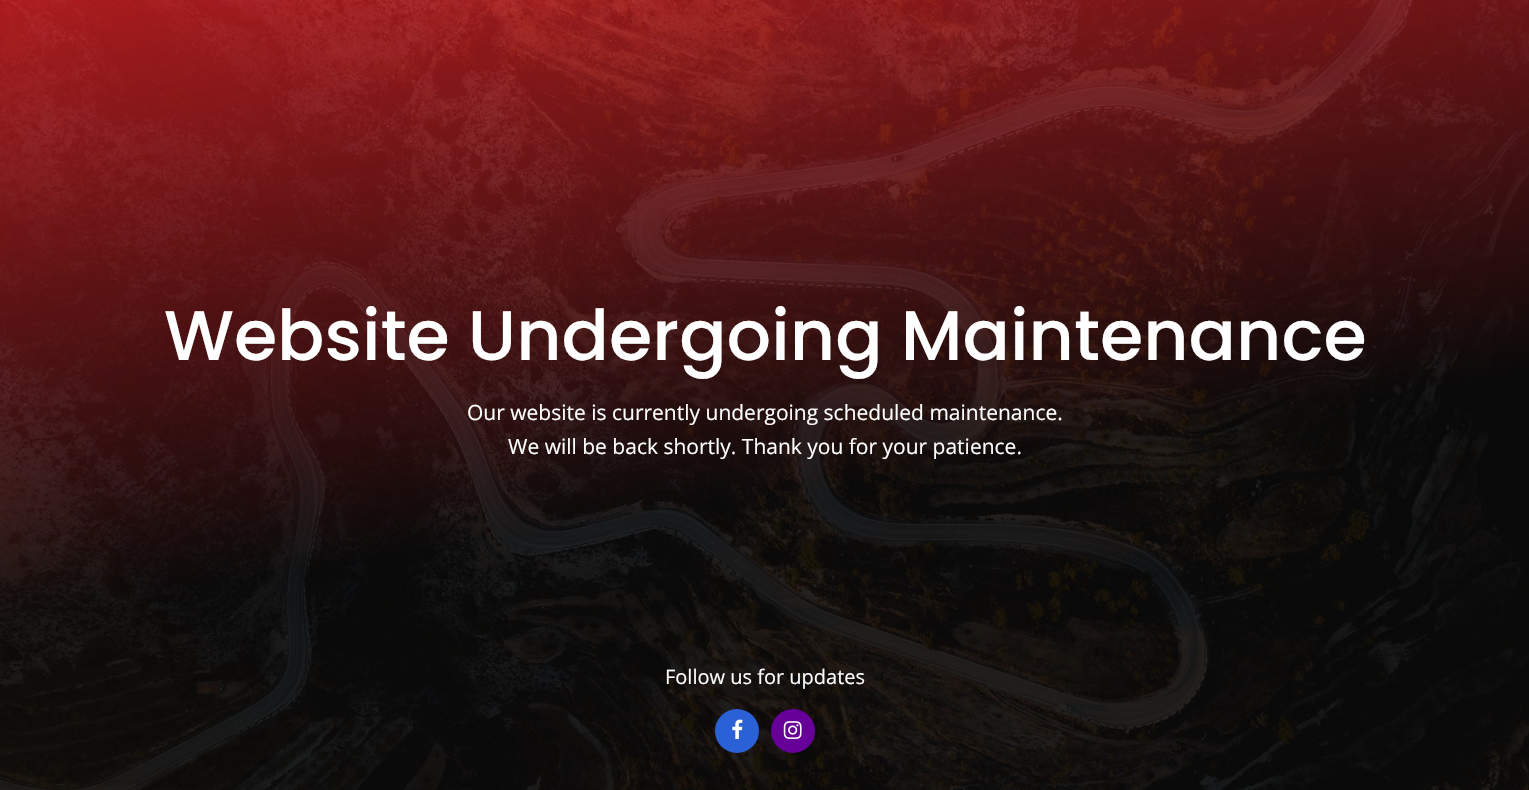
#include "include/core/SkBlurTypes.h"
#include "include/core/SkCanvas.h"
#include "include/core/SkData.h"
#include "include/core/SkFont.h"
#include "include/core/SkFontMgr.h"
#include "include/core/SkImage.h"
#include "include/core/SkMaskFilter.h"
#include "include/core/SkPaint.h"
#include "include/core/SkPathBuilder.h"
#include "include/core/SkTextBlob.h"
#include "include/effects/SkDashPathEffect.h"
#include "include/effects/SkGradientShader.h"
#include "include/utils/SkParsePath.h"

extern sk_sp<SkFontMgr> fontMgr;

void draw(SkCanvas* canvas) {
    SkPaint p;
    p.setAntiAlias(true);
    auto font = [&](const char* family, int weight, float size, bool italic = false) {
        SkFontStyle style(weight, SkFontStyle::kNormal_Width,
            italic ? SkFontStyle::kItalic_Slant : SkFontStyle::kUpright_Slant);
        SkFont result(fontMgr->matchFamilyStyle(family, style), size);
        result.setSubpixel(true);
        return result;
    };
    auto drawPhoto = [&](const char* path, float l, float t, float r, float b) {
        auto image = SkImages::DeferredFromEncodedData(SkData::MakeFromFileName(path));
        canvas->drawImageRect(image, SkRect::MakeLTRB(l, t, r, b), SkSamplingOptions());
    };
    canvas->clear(0xFFFFFFFF);
    drawPhoto("media/1.png", 0, 0, 1529, 790);
    auto font1 = font("Poppins", 500, 70);
    p.setColor(0xFFFFFFFF);
    canvas->drawString("Website Undergoing Maintenance", 164, 360, font1, p);
    auto font2 = font("Open Sans", 400, 21);
    canvas->drawString("Our website is currently undergoing scheduled maintenance.", 467, 420, font2, p);
    canvas->drawString("We will be back shortly. Thank you for your patience.", 508, 454, font2, p);
    auto font3 = font("Open Sans", 400, 20);
    canvas->drawString("Follow us for updates", 665, 684, font3, p);
    p.setColor(0xFF2A61D6);
    canvas->drawCircle(737, 731, 22, p);
    drawPhoto("media/2.png", 732, 719, 743, 739);
    p.setColor(0xFF660099);
    canvas->drawCircle(793, 731, 22, p);
    drawPhoto("media/3.png", 783, 721, 802, 739);
}
